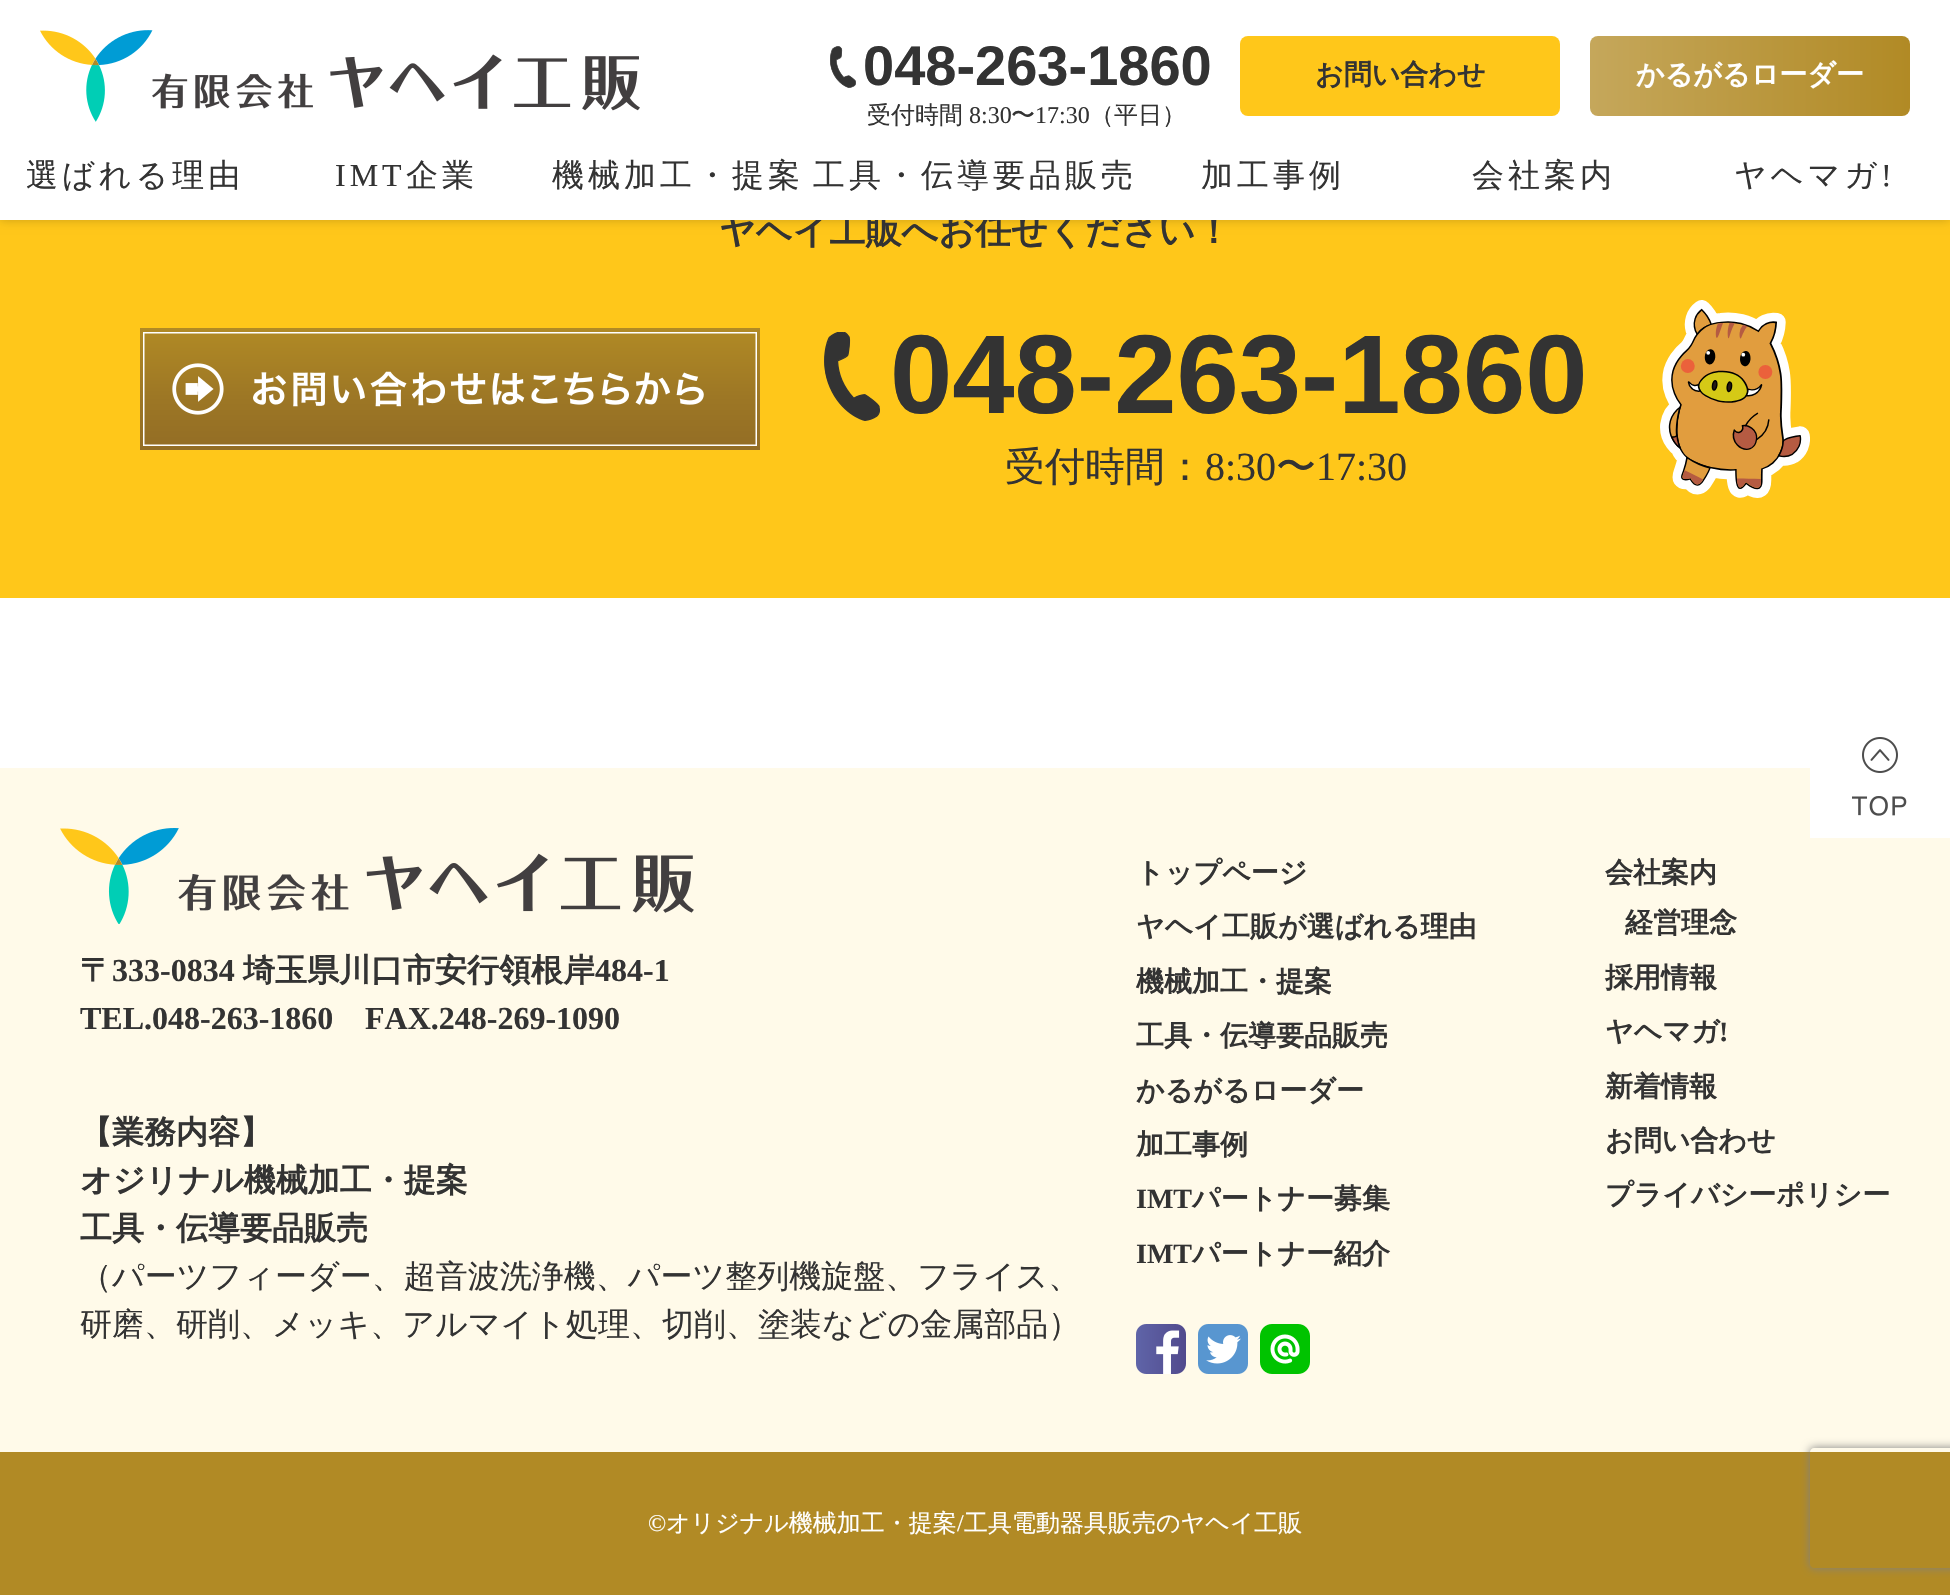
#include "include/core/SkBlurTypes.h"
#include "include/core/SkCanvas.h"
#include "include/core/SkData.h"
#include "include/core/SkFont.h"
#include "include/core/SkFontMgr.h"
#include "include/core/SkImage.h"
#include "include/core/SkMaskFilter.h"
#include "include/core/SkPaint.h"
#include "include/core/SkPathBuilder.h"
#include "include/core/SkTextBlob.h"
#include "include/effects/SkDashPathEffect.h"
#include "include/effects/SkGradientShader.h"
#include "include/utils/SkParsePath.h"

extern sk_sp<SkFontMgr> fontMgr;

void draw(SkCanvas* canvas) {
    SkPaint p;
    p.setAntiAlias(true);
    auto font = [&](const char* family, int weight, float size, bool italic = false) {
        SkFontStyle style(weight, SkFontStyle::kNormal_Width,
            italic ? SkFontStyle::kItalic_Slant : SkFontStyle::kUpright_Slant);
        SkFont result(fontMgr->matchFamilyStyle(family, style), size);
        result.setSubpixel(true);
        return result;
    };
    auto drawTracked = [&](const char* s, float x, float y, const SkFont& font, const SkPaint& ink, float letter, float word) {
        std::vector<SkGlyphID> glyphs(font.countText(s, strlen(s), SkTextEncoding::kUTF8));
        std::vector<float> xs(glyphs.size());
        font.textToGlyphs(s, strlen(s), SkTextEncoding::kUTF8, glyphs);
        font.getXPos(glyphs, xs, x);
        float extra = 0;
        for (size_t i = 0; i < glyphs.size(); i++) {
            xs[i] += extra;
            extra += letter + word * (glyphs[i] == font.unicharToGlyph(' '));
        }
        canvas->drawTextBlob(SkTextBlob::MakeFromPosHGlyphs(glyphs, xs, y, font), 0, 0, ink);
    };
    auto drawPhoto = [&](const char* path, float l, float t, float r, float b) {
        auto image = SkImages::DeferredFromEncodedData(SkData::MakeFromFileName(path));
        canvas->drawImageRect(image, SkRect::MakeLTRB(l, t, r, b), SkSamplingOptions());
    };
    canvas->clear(0xFFFFFFFF);
    p.setColor(0xFFFFC71A);
    canvas->drawRect(SkRect::MakeLTRB(0, 220, 1950, 598), p);
    p.setColor(0x33000000);
    p.setMaskFilter(SkMaskFilter::MakeBlur(kNormal_SkBlurStyle, 5));
    canvas->drawRect(SkRect::MakeLTRB(0, -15, 1950, 220), p);
    p.setMaskFilter(nullptr);
    auto font1 = font("WenQuanYi Zen Hei", 700, 36);
    p.setColor(0xFF333333);
    canvas->drawString("ヤヘイ工販へお任せください！", 719, 243, font1, p);
    p.setColor(0xFFFFFFFF);
    canvas->drawRect(SkRect::MakeLTRB(0, 0, 1950, 220), p);
    drawPhoto("media/1.png", 40, 30, 640, 122);
    drawPhoto("media/2.png", 830, 46, 856, 88);
    auto font2 = font("Liberation Sans", 700, 56);
    p.setColor(0xFF333333);
    canvas->drawString("048-263-1860", 863, 85, font2, p);
    auto font3 = font("WenQuanYi Zen Hei", 500, 24);
    canvas->drawString("受付時間", 867, 123, font3, p);
    auto font4 = font("Liberation Serif", 400, 24);
    canvas->drawString("8:30", 969, 123, font4, p);
    canvas->drawString("〜", 1011, 123, font3, p);
    canvas->drawString("17:30", 1035, 123, font4, p);
    canvas->drawString("（平日）", 1090, 123, font3, p);
    p.setColor(0xFFFFC71A);
    canvas->drawRoundRect(SkRect::MakeLTRB(1240, 36, 1560, 116), 8, 8, p);
    auto font5 = font("WenQuanYi Zen Hei", 700, 28);
    p.setColor(0xFF333333);
    canvas->drawString("お問い合わせ", 1315, 84, font5, p);
    {
        const SkColor colors[] = {0xFFC5A75B, 0xFFB18A25};
        const float stops[] = {0, 1};
        const SkPoint ends[] = {{1590, 76}, {1910, 76}};
        p.setShader(SkGradientShader::MakeLinear(ends, colors, stops, 2, SkTileMode::kClamp));
        p.setAlpha(255);
    }
    canvas->drawRoundRect(SkRect::MakeLTRB(1590, 36, 1910, 116), 8, 8, p);
    p.setShader(nullptr);
    p.setColor(0xFFFFFFFF);
    canvas->drawString("かるがるローダー", 1636, 84, font5, p);
    auto font6 = font("WenQuanYi Zen Hei", 500, 32);
    p.setColor(0xFF333333);
    drawTracked("選ばれる理由", 26, 186, font6, p, 4, 0);
    auto font7 = font("Liberation Serif", 400, 32);
    drawTracked("IMT", 335, 186, font7, p, 4, 0);
    {
        const struct { const char* s; float x, y; } items[] = {
            {"企業", 406, 186},
            {"機械加工・提案", 552, 186},
            {"工具・伝導要品販売", 813, 186},
            {"加工事例", 1201, 186},
            {"会社案内", 1472, 186},
            {"ヤヘマガ", 1734, 186},
        };
        for (auto [s, x, y] : items) {
            drawTracked(s, x, y, font6, p, 4, 0);
        }
    }
    drawTracked("!", 1881, 186, font7, p, 4, 0);
    drawPhoto("media/3.png", 140, 328, 760, 450);
    drawPhoto("media/4.png", 824, 332, 880, 421);
    auto font8 = font("Liberation Sans", 700, 112);
    canvas->drawString("048-263-1860", 890, 413, font8, p);
    auto font9 = font("WenQuanYi Zen Hei", 500, 40);
    canvas->drawString("受付時間：", 1005, 480, font9, p);
    auto font10 = font("Liberation Serif", 400, 40);
    canvas->drawString("8:30", 1205, 480, font10, p);
    canvas->drawString("〜", 1276, 480, font9, p);
    canvas->drawString("17:30", 1316, 480, font10, p);
    drawPhoto("media/5.png", 1660, 300, 1810, 498);
    p.setColor(0xFFFFFAE9);
    canvas->drawRect(SkRect::MakeLTRB(0, 768, 1950, 1452), p);
    drawPhoto("media/6.png", 1810, 737, 1950, 838);
    drawPhoto("media/7.png", 60, 828, 694, 924);
    auto font11 = font("WenQuanYi Zen Hei", 700, 32);
    p.setColor(0xFF333333);
    canvas->drawString("〒", 80, 981, font11, p);
    auto font12 = font("Liberation Serif", 700, 32);
    canvas->drawString("333-0834", 112, 981, font12, p);
    canvas->drawString("埼玉県川口市安行領根岸", 243, 981, font11, p);
    {
        const struct { const char* s; float x, y; } items[] = {
            {"484-1", 595, 981},
            {"TEL.048-263-1860", 80, 1029},
            {"FAX.248-269-1090", 365, 1029},
        };
        for (auto [s, x, y] : items) {
            canvas->drawString(s, x, y, font12, p);
        }
    }
    {
        const struct { const char* s; float x, y; } items[] = {
            {"【業務内容】", 80, 1143},
            {"オジリナル機械加工・提案", 80, 1191},
            {"工具・伝導要品販売", 80, 1239},
        };
        for (auto [s, x, y] : items) {
            canvas->drawString(s, x, y, font11, p);
        }
    }
    canvas->drawString("（パーツフィーダー、超音波洗浄機、パーツ整列機旋盤、フライス、", 80, 1287, font6, p);
    canvas->drawString("研磨、研削、メッキ、アルマイト処理、切削、塗装などの金属部品）", 80, 1335, font6, p);
    {
        const struct { const char* s; float x, y; } items[] = {
            {"トップページ", 1136, 882},
            {"ヤヘイ工販が選ばれる理由", 1136, 936},
            {"機械加工・提案", 1136, 991},
            {"工具・伝導要品販売", 1136, 1045},
            {"かるがるローダー", 1136, 1100},
            {"加工事例", 1136, 1154},
        };
        for (auto [s, x, y] : items) {
            canvas->drawString(s, x, y, font5, p);
        }
    }
    auto font13 = font("Liberation Serif", 700, 28);
    canvas->drawString("IMT", 1136, 1208, font13, p);
    canvas->drawString("パートナー募集", 1192, 1208, font5, p);
    canvas->drawString("IMT", 1136, 1263, font13, p);
    {
        const struct { const char* s; float x, y; } items[] = {
            {"パートナー紹介", 1192, 1263},
            {"会社案内", 1605, 882},
            {"経営理念", 1625, 932},
            {"採用情報", 1605, 987},
            {"ヤヘマガ", 1605, 1041},
        };
        for (auto [s, x, y] : items) {
            canvas->drawString(s, x, y, font5, p);
        }
    }
    canvas->drawString("!", 1719, 1041, font13, p);
    {
        const struct { const char* s; float x, y; } items[] = {
            {"新着情報", 1605, 1096},
            {"お問い合わせ", 1605, 1150},
            {"プライバシーポリシー", 1605, 1204},
        };
        for (auto [s, x, y] : items) {
            canvas->drawString(s, x, y, font5, p);
        }
    }
    drawPhoto("media/8.png", 1136, 1324, 1186, 1374);
    drawPhoto("media/9.png", 1198, 1324, 1248, 1374);
    drawPhoto("media/10.png", 1260, 1324, 1310, 1374);
    p.setColor(0xFFB18A25);
    canvas->drawRect(SkRect::MakeLTRB(0, 1452, 1950, 1595), p);
    p.setColor(0xFFFFFFFF);
    canvas->drawString("©", 648, 1531, font4, p);
    canvas->drawString("オリジナル機械加工・提案", 666, 1531, font3, p);
    canvas->drawString("/", 957, 1531, font4, p);
    canvas->drawString("工具電動器具販売のヤヘイ工販", 964, 1531, font3, p);
    canvas->save();
    canvas->clipPath(SkPathBuilder(SkPathFillType::kEvenOdd).moveTo(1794, 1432).lineTo(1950, 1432).lineTo(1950, 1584).lineTo(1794, 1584).close().moveTo(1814, 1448).lineTo(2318, 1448).cubicTo(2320, 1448, 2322, 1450, 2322, 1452).lineTo(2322, 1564).cubicTo(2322, 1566, 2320, 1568, 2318, 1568).lineTo(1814, 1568).cubicTo(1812, 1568, 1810, 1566, 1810, 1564).lineTo(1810, 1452).cubicTo(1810, 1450, 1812, 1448, 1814, 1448).close().detach(), true);
    p.setColor(0xFF808080);
    p.setMaskFilter(SkMaskFilter::MakeBlur(kNormal_SkBlurStyle, 5));
    canvas->drawRoundRect(SkRect::MakeLTRB(1810, 1448, 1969, 1568), 4, 4, p);
    p.setMaskFilter(nullptr);
    canvas->restore();
}
